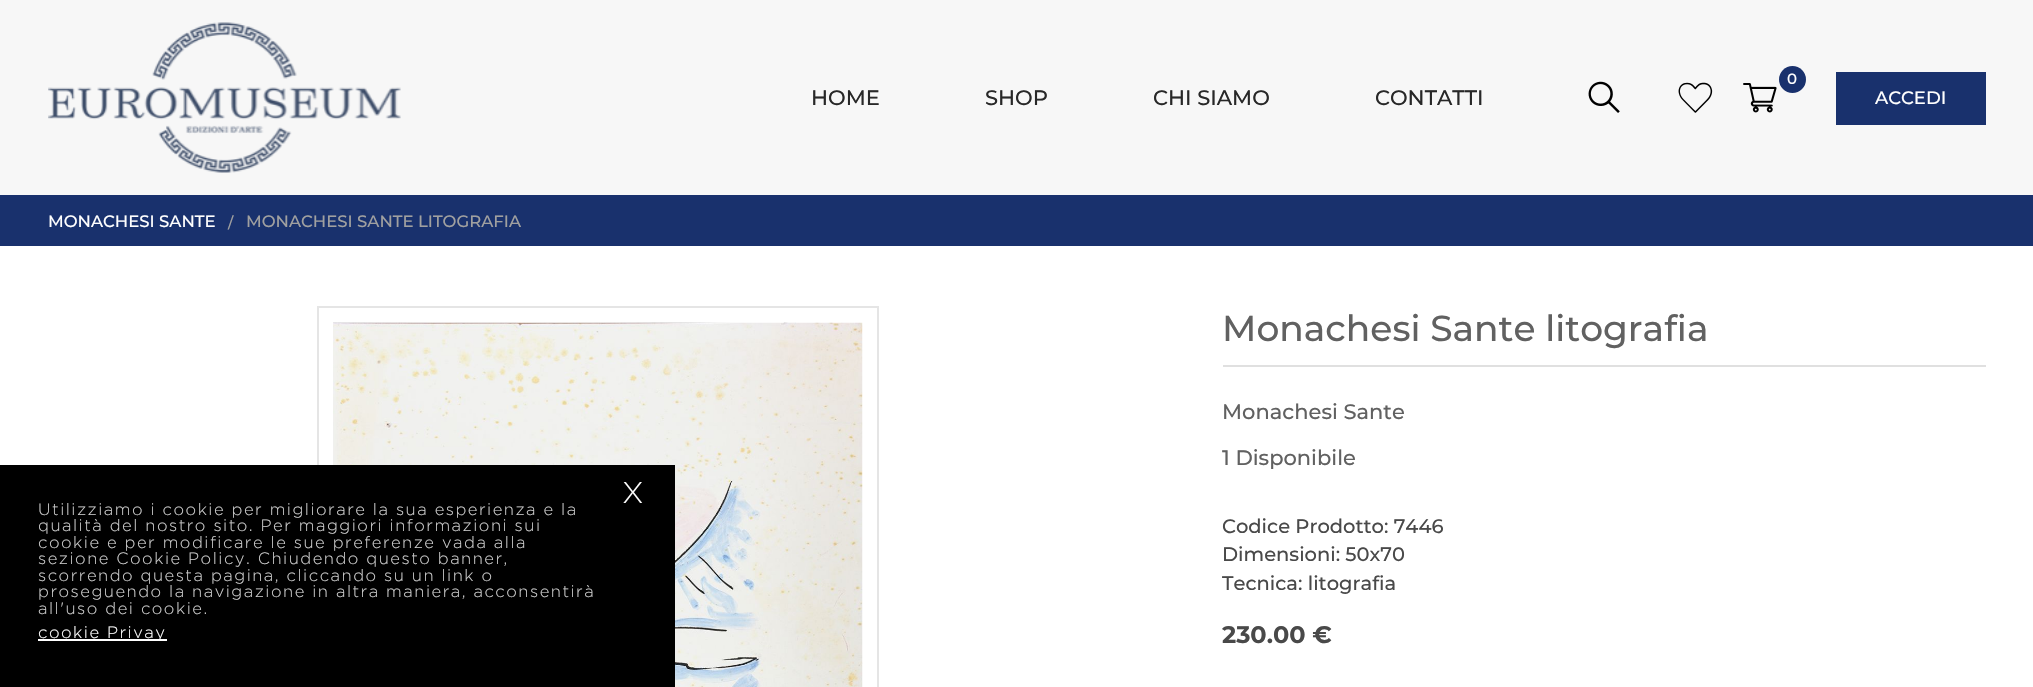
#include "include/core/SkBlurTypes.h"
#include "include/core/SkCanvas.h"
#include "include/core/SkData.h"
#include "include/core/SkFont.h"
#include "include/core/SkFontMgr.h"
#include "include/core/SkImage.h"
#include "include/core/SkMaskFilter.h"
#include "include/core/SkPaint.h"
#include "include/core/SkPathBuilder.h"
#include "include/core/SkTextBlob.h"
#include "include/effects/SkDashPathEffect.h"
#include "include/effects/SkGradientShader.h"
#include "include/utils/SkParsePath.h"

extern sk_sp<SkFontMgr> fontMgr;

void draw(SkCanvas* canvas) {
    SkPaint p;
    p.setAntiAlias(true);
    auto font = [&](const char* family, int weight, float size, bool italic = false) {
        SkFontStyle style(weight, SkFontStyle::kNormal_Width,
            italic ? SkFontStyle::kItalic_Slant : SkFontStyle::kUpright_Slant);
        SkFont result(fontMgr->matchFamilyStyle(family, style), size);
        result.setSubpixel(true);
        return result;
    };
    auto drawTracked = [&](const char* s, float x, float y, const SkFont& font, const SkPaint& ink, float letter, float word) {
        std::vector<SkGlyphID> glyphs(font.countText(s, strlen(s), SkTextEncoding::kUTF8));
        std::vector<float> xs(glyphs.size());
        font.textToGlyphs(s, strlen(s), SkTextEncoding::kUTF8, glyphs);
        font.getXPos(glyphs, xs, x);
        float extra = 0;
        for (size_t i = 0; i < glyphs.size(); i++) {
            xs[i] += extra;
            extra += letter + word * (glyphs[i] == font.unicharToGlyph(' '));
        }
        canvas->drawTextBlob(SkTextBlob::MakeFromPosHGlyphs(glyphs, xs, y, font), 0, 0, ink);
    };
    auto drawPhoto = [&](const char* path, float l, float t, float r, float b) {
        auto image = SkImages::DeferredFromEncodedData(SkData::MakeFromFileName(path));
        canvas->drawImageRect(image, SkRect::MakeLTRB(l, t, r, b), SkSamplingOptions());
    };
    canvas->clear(0xFFFFFFFF);
    p.setColor(0xFFF7F7F7);
    canvas->drawRect(SkRect::MakeLTRB(0, 0, 2033, 195), p);
    auto font1 = font("Montserrat", 500, 21);
    p.setColor(0xFF282828);
    {
        const struct { const char* s; float x, y; } items[] = {
            {"HOME", 811, 105},
            {"SHOP", 985, 105},
            {"CHI SIAMO", 1153, 105},
            {"CONTATTI", 1375, 105},
        };
        for (auto [s, x, y] : items) {
            canvas->drawString(s, x, y, font1, p);
        }
    }
    drawPhoto("media/1.png", 1588, 81, 1620, 113);
    drawPhoto("media/2.png", 48, 22, 401, 173);
    p.setColor(0xFF19316D);
    canvas->drawCircle(1792.5f, 79.5f, 13.5f, p);
    auto font2 = font("Montserrat", 500, 15);
    p.setColor(0xFFFFFFFF);
    canvas->drawString("0", 1787, 84, font2, p);
    drawPhoto("media/3.png", 1743, 83, 1777, 113);
    drawPhoto("media/4.png", 1678, 82, 1713, 113);
    p.setColor(0xFF19316D);
    canvas->drawRect(SkRect::MakeLTRB(1836, 72, 1986, 125), p);
    auto font3 = font("Montserrat", 500, 18);
    p.setColor(0xFFFFFFFF);
    canvas->drawString("ACCEDI", 1875, 104, font3, p);
    p.setColor(0xFF19316D);
    canvas->drawRect(SkRect::MakeLTRB(0, 195, 2033, 246), p);
    auto font4 = font("Montserrat", 500, 16.5f);
    p.setColor(0xFFFFFFFF);
    canvas->drawString("MONACHESI SANTE", 48, 227, font4, p);
    p.setColor(0xFFA0A0A0);
    canvas->drawString("/", 228, 228, font2, p);
    canvas->drawString("MONACHESI SANTE LITOGRAFIA", 246, 227, font4, p);
    p.setStyle(SkPaint::kStroke_Style);
    p.setStrokeWidth(2);
    p.setColor(0xFFE5E5E5);
    canvas->drawRect(SkRect::MakeLTRB(318, 307, 878, 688), p);
    drawPhoto("media/5.png", 333, 322, 863, 687);
    p.setStyle(SkPaint::kFill_Style);
    p.setColor(0xFFE0E0E0);
    canvas->drawRect(SkRect::MakeLTRB(1223, 365, 1986, 367), p);
    auto font5 = font("Montserrat", 500, 36);
    p.setColor(0xFF616161);
    canvas->drawString("Monachesi Sante litografia", 1222, 341, font5, p);
    canvas->drawString("Monachesi Sante", 1222, 419, font1, p);
    canvas->drawString("1 Disponibile", 1222, 465, font1, p);
    auto font6 = font("Montserrat", 500, 19.5f);
    p.setColor(0xFF494949);
    {
        const struct { const char* s; float x, y; } items[] = {
            {"Codice Prodotto: 7446", 1222, 533},
            {"Dimensioni: 50x70", 1222, 561},
            {"Tecnica: litografia", 1222, 590},
        };
        for (auto [s, x, y] : items) {
            canvas->drawString(s, x, y, font6, p);
        }
    }
    auto font7 = font("Montserrat", 700, 24);
    canvas->drawString("230.00 €", 1222, 643, font7, p);
    p.setColor(0xFF000000);
    canvas->drawRect(SkRect::MakeLTRB(0, 465, 675, 687), p);
    auto font8 = font("Gotham", 300, 30);
    p.setColor(0xFFFFFFFF);
    drawTracked("X", 622, 503, font8, p, 1.5f, 0);
    auto font9 = font("Gotham", 300, 16.5f);
    p.setColor(0xFFCCCCCC);
    {
        const struct { const char* s; float x, y; } items[] = {
            {"Utilizziamo i cookie per migliorare la sua esperienza e la", 38, 515},
            {"qualità del nostro sito. Per maggiori informazioni sui", 38, 531},
            {"cookie e per modificare le sue preferenze vada alla", 38, 548},
            {"sezione Cookie Policy. Chiudendo questo banner,", 38, 564},
            {"scorrendo questa pagina, cliccando su un link o", 38, 581},
            {"proseguendo la navigazione in altra maniera, acconsentirà", 38, 597},
            {"all'uso dei cookie.", 38, 614},
        };
        for (auto [s, x, y] : items) {
            drawTracked(s, x, y, font9, p, 1.5f, 0);
        }
    }
    p.setColor(0xFFFFFFFF);
    canvas->drawRect(SkRect::MakeLTRB(38, 639, 167, 641), p);
    drawTracked("cookie Privay", 38, 638, font9, p, 1.5f, 0);
}
